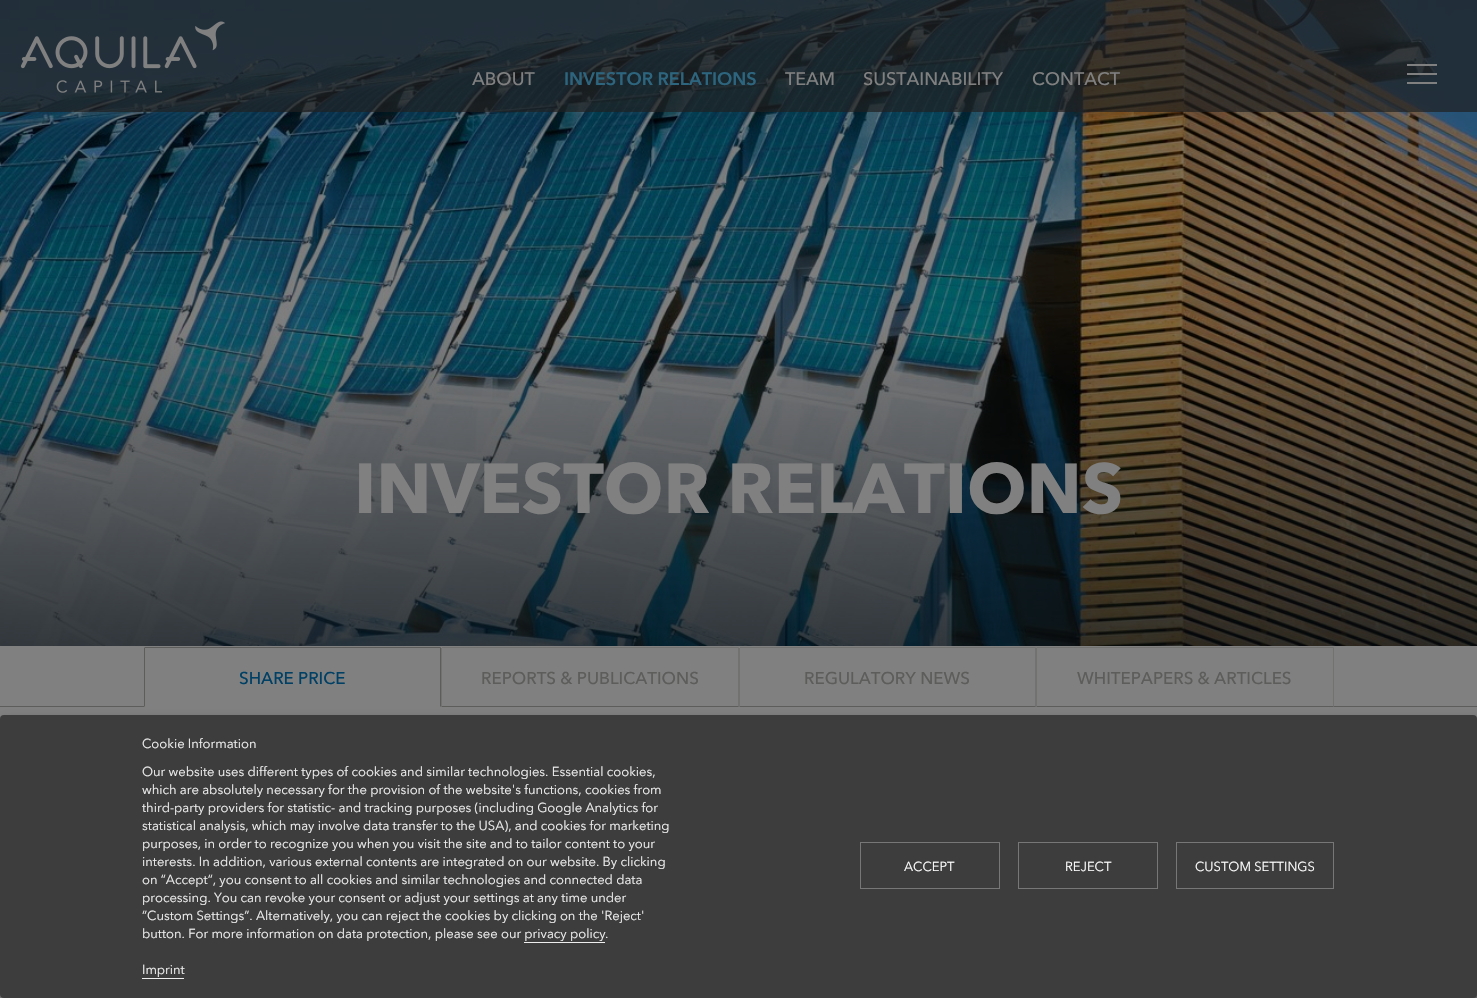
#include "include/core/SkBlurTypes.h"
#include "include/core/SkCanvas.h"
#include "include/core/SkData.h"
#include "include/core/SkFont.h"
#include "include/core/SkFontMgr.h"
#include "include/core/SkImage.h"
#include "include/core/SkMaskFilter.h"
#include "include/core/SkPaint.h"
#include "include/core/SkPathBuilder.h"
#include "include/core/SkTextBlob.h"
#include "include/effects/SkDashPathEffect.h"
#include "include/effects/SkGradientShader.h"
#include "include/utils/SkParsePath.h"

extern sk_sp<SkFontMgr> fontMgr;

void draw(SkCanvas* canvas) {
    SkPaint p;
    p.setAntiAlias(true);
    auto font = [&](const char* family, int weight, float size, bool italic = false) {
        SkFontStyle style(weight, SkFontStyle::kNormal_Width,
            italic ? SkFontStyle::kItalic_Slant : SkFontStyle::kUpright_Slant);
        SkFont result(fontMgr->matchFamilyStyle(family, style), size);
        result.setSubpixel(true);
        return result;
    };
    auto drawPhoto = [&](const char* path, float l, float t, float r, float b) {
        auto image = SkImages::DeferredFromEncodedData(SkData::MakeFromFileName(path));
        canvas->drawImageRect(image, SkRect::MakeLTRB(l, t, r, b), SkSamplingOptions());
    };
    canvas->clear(0xFF808080);
    drawPhoto("media/2.png", 0, 0, 1477, 646);
    p.setColor(0xB31F1F1F);
    canvas->drawRect(SkRect::MakeLTRB(0, 0, 1477, 112), p);
    drawPhoto("media/1.png", 20, 21, 225, 93);
    auto font1 = font("Avenir", 500, 18);
    p.setColor(0xFF808080);
    canvas->drawString("ABOUT", 472, 85, font1, p);
    auto font2 = font("Avenir", 600, 18);
    p.setColor(0xFF2D657E);
    canvas->drawString("INVESTOR RELATIONS", 564, 85, font2, p);
    p.setColor(0xFF808080);
    {
        const struct { const char* s; float x, y; } items[] = {
            {"TEAM", 785, 85},
            {"SUSTAINABILITY", 863, 85},
            {"CONTACT", 1032, 85},
        };
        for (auto [s, x, y] : items) {
            canvas->drawString(s, x, y, font1, p);
        }
    }
    {
        const struct { float l, t, r, b; SkColor color; } items[] = {
            {1407, 64, 1437, 66, 0xFF808080},
            {1407, 73, 1437, 75, 0xFF808080},
            {1407, 82, 1437, 84, 0xFF808080},
        };
        for (auto [l, t, r, b, color] : items) {
            p.setColor(color);
            canvas->drawRect(SkRect::MakeLTRB(l, t, r, b), p);
        }
    }
    auto font3 = font("Avenir", 700, 70);
    canvas->drawString("INVESTOR RELATIONS", 354, 513, font3, p);
    p.setColor(0xFF5D5D5B);
    canvas->drawRect(SkRect::MakeLTRB(0, 706, 1477, 707), p);
    p.setColor(0xFF808080);
    canvas->drawRect(SkRect::MakeLTRB(144, 706, 1334, 707), p);
    p.setColor(0xFF5D5D5B);
    canvas->drawPath(SkPathBuilder().moveTo(145, 647).lineTo(144, 648).lineTo(145, 648).lineTo(440, 648).lineTo(441, 647).lineTo(440, 647).close().detach(), p);
    canvas->drawPath(SkPathBuilder().moveTo(441, 707).lineTo(441, 647).lineTo(440, 648).lineTo(440, 706).close().detach(), p);
    canvas->drawPath(SkPathBuilder().moveTo(145, 648).lineTo(144, 648).lineTo(144, 707).lineTo(145, 706).close().detach(), p);
    auto font4 = font("Avenir", 500, 17);
    p.setColor(0xFF004065);
    canvas->drawString("SHARE PRICE", 239, 684, font4, p);
    p.setColor(0xFF727271);
    canvas->drawPath(SkPathBuilder().moveTo(442, 647).lineTo(442, 648).lineTo(738, 648).lineTo(739, 647).lineTo(738, 647).close().detach(), p);
    canvas->drawPath(SkPathBuilder().moveTo(739, 707).lineTo(739, 647).lineTo(738, 648).lineTo(738, 706).close().detach(), p);
    p.setColor(0xFF5D5D5B);
    canvas->drawPath(SkPathBuilder().moveTo(739, 707).lineTo(738, 706).lineTo(442, 706).lineTo(441, 707).close().detach(), p);
    p.setColor(0xFF727271);
    canvas->drawPath(SkPathBuilder().moveTo(442, 648).lineTo(441, 648).lineTo(441, 707).lineTo(442, 706).close().detach(), p);
    p.setColor(0xFF5D5D5B);
    canvas->drawString("REPORTS & PUBLICATIONS", 481, 684, font4, p);
    p.setColor(0xFF727271);
    canvas->drawPath(SkPathBuilder().moveTo(740, 647).lineTo(740, 648).lineTo(1035, 648).lineTo(1036, 647).lineTo(1035, 647).close().detach(), p);
    canvas->drawPath(SkPathBuilder().moveTo(1036, 707).lineTo(1036, 647).lineTo(1035, 648).lineTo(1035, 706).close().detach(), p);
    p.setColor(0xFF5D5D5B);
    canvas->drawPath(SkPathBuilder().moveTo(1036, 707).lineTo(1035, 706).lineTo(740, 706).lineTo(739, 707).close().detach(), p);
    p.setColor(0xFF727271);
    canvas->drawPath(SkPathBuilder().moveTo(740, 648).lineTo(739, 648).lineTo(739, 707).lineTo(740, 706).close().detach(), p);
    p.setColor(0xFF5D5D5B);
    canvas->drawString("REGULATORY NEWS", 804, 684, font4, p);
    p.setColor(0xFF727271);
    canvas->drawPath(SkPathBuilder().moveTo(1037, 647).lineTo(1036, 648).lineTo(1037, 648).lineTo(1333, 648).lineTo(1334, 647).lineTo(1333, 647).close().detach(), p);
    canvas->drawPath(SkPathBuilder().moveTo(1334, 707).lineTo(1334, 647).lineTo(1333, 648).lineTo(1333, 706).close().detach(), p);
    p.setColor(0xFF5D5D5B);
    canvas->drawPath(SkPathBuilder().moveTo(1334, 707).lineTo(1333, 706).lineTo(1037, 706).lineTo(1036, 707).close().detach(), p);
    p.setColor(0xFF727271);
    canvas->drawPath(SkPathBuilder().moveTo(1037, 648).lineTo(1036, 648).lineTo(1036, 707).lineTo(1037, 706).close().detach(), p);
    p.setColor(0xFF5D5D5B);
    canvas->drawString("WHITEPAPERS & ARTICLES", 1077, 684, font4, p);
    p.setColor(0x30000000);
    p.setMaskFilter(SkMaskFilter::MakeBlur(kNormal_SkBlurStyle, 5));
    canvas->drawRoundRect(SkRect::MakeLTRB(5, 720, 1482, 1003), 4, 4, p);
    p.setMaskFilter(nullptr);
    p.setColor(0x33000000);
    p.setMaskFilter(SkMaskFilter::MakeBlur(kNormal_SkBlurStyle, 3));
    canvas->drawRoundRect(SkRect::MakeLTRB(0, 719, 1477, 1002), 4, 4, p);
    p.setMaskFilter(nullptr);
    p.setColor(0xFF3D3D3D);
    canvas->drawRoundRect(SkRect::MakeLTRB(0, 715, 1477, 998), 4, 4, p);
    auto font5 = font("Avenir", 400, 13);
    p.setColor(0xFFEEEEEE);
    {
        const struct { const char* s; float x, y; } items[] = {
            {"Cookie Information", 142, 748},
            {"Our website uses different types of cookies and similar technologies. Essential cookies,", 142, 776},
            {"which are absolutely necessary for the provision of the website's functions, cookies from", 142, 794},
            {"third-party providers for statistic- and tracking purposes (including Google Analytics for", 142, 812},
            {"statistical analysis, which may involve data transfer to the USA), and cookies for marketing", 142, 830},
            {"purposes, in order to recognize you when you visit the site and to tailor content to your", 142, 848},
            {"interests. In addition, various external contents are integrated on our website. By clicking", 142, 866},
            {"on “Accept“, you consent to all cookies and similar technologies and connected data", 142, 884},
            {"processing. You can revoke your consent or adjust your settings at any time under", 142, 902},
            {"“Custom Settings“. Alternatively, you can reject the cookies by clicking on the 'Reject'", 142, 920},
            {"button. For more information on data protection, please see our privacy policy", 142, 938},
            {".", 605, 938},
        };
        for (auto [s, x, y] : items) {
            canvas->drawString(s, x, y, font5, p);
        }
    }
    canvas->drawRect(SkRect::MakeLTRB(524, 942, 605, 943), p);
    canvas->drawString("Imprint", 142, 974, font5, p);
    canvas->drawRect(SkRect::MakeLTRB(142, 978, 184, 979), p);
    p.setStyle(SkPaint::kStroke_Style);
    p.setStrokeWidth(1);
    p.setColor(0xFF777777);
    canvas->drawRect(SkRect::MakeLTRB(860.5f, 842.5f, 999.5f, 888.5f), p);
    p.setStyle(SkPaint::kFill_Style);
    p.setColor(0xFFFFFFFF);
    canvas->drawString("ACCEPT", 904, 871, font5, p);
    p.setStyle(SkPaint::kStroke_Style);
    p.setColor(0xFF777777);
    canvas->drawRect(SkRect::MakeLTRB(1018.5f, 842.5f, 1157.5f, 888.5f), p);
    p.setStyle(SkPaint::kFill_Style);
    p.setColor(0xFFFFFFFF);
    canvas->drawString("REJECT", 1065, 871, font5, p);
    p.setStyle(SkPaint::kStroke_Style);
    p.setColor(0xFF777777);
    canvas->drawRect(SkRect::MakeLTRB(1176.5f, 842.5f, 1333.5f, 888.5f), p);
    p.setStyle(SkPaint::kFill_Style);
    p.setColor(0xFFFFFFFF);
    canvas->drawString("CUSTOM SETTINGS", 1195, 871, font5, p);
}
